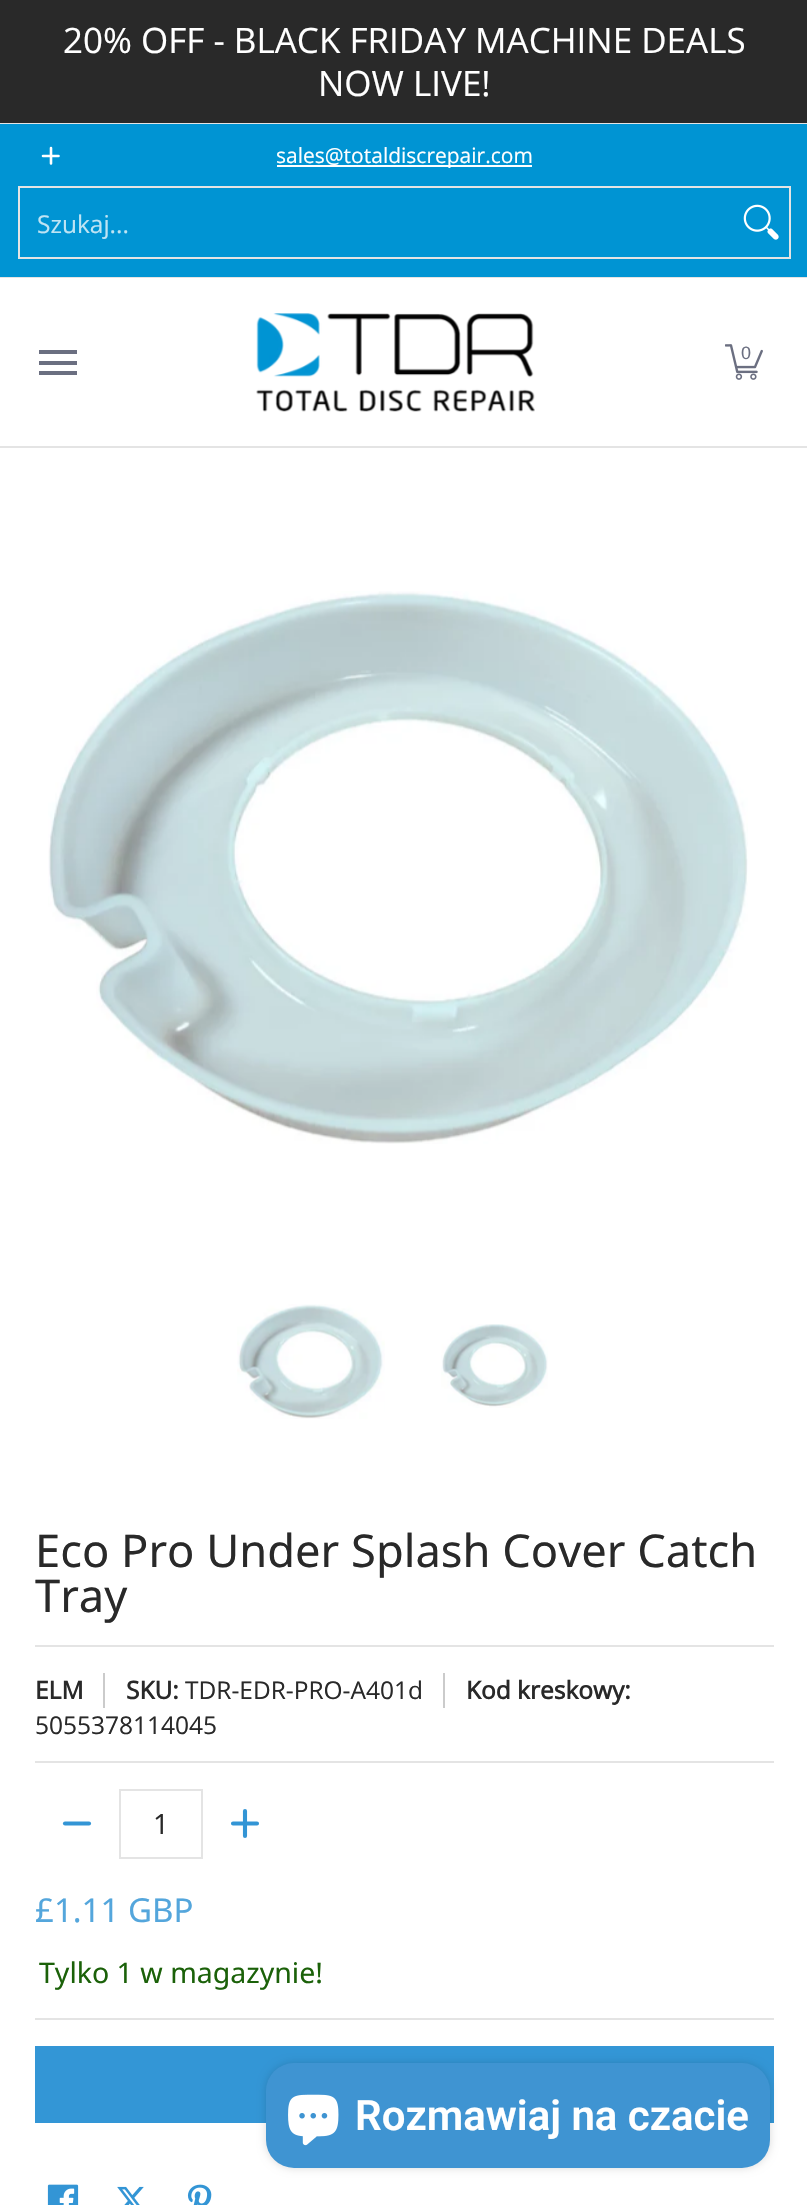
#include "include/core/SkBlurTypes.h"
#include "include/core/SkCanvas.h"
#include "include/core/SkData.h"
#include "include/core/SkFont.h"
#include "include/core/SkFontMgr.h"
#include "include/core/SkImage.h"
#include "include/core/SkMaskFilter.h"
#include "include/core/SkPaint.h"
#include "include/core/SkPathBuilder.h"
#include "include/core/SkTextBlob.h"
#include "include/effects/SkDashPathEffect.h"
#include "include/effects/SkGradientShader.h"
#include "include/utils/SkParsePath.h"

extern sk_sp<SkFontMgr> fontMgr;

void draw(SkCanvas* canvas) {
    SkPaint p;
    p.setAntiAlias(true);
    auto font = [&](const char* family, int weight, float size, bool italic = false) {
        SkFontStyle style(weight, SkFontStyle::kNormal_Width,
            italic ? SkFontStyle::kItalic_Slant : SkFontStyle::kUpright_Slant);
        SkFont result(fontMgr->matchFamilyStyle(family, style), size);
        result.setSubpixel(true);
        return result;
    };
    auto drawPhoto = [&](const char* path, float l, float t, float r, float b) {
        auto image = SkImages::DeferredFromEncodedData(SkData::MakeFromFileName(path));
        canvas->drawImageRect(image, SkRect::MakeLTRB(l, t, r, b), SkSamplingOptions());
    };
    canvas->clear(0xFFFFFFFF);
    p.setColor(0xFF292929);
    canvas->drawRect(SkRect::MakeLTRB(0, 0, 807, 123), p);
    p.setColor(0xFFE4E4E4);
    canvas->drawRect(SkRect::MakeLTRB(0, 123, 807, 124), p);
    auto font1 = font("Open Sans", 400, 35);
    p.setColor(0xFFFFFFFF);
    canvas->drawString("20% OFF - BLACK FRIDAY MACHINE DEALS", 63, 53, font1, p);
    canvas->drawString("NOW LIVE!", 318, 96, font1, p);
    p.setColor(0xFF0094D3);
    canvas->drawRect(SkRect::MakeLTRB(0, 124, 807, 277), p);
    p.setColor(0xFFE4E4E4);
    canvas->drawRect(SkRect::MakeLTRB(0, 277, 807, 278), p);
    p.setStyle(SkPaint::kStroke_Style);
    p.setStrokeWidth(2.6f);
    p.setStrokeCap(SkPaint::kRound_Cap);
    p.setStrokeJoin(SkPaint::kRound_Join);
    p.setColor(0xFFFFFFFF);
    canvas->drawPath(SkPathBuilder().moveTo(51, 148).lineTo(51, 163.5f).moveTo(58.5f, 156).lineTo(43, 156).detach(), p);
    p.setStyle(SkPaint::kFill_Style);
    canvas->drawRect(SkRect::MakeLTRB(277, 165, 532, 167), p);
    auto font2 = font("Open Sans", 400, 21);
    canvas->drawString("sales@totaldiscrepair.com", 276, 163, font2, p);
    p.setStyle(SkPaint::kStroke_Style);
    p.setStrokeWidth(2);
    p.setStrokeCap(SkPaint::kButt_Cap);
    p.setStrokeJoin(SkPaint::kMiter_Join);
    p.setColor(0xFFE4E4E4);
    canvas->drawRect(SkRect::MakeLTRB(19, 187, 790, 258), p);
    auto font3 = font("Open Sans", 400, 24.5f);
    p.setStyle(SkPaint::kFill_Style);
    p.setColor(0xFFBFE4F4);
    canvas->drawString("Szukaj...", 37, 233, font3, p);
    drawPhoto("media/1.png", 743, 204, 779, 240);
    {
        const struct { float l, t, r, b; SkColor color; } items[] = {
            {0, 446, 807, 448, 0xFFE4E4E4},
            {39, 350, 77, 354, 0xFF6B6F81},
            {39, 371, 77, 375, 0xFF6B6F81},
            {39, 361, 77, 365, 0xFF6B6F81},
        };
        for (auto [l, t, r, b, color] : items) {
            p.setColor(color);
            canvas->drawRect(SkRect::MakeLTRB(l, t, r, b), p);
        }
    }
    drawPhoto("media/2.png", 256, 313, 535, 412);
    drawPhoto("media/3.png", 725, 344, 763, 380);
    auto font4 = font("Liberation Sans", 400, 18);
    canvas->drawString("0", 741, 359, font4, p);
    drawPhoto("media/4.png", 48, 591, 748, 1144);
    drawPhoto("media/5.png", 237, 1304, 385, 1419);
    drawPhoto("media/6.png", 441, 1324, 548, 1408);
    p.setColor(0xFFE4E4E4);
    canvas->drawRect(SkRect::MakeLTRB(35, 1645, 774, 1647), p);
    auto font5 = font("Noto Sans", 400, 45.25f);
    p.setColor(0xFF292929);
    canvas->drawString("Eco Pro Under Splash Cover Catch", 35, 1567, font5, p);
    canvas->drawString("Tray", 35, 1612, font5, p);
    auto font6 = font("Open Sans", 700, 24.5f);
    canvas->drawString("ELM", 35, 1699, font6, p);
    p.setColor(0xFFCBCBCB);
    canvas->drawRect(SkRect::MakeLTRB(103, 1673, 105, 1708), p);
    p.setColor(0xFF292929);
    canvas->drawString("SKU:", 126, 1699, font6, p);
    canvas->drawString("TDR-EDR-PRO-A401d", 185, 1699, font3, p);
    p.setColor(0xFFCBCBCB);
    canvas->drawRect(SkRect::MakeLTRB(443, 1673, 445, 1708), p);
    p.setColor(0xFF292929);
    canvas->drawString("Kod kreskowy:", 466, 1699, font6, p);
    canvas->drawString("5055378114045", 35, 1734, font3, p);
    p.setColor(0xFFE4E4E4);
    canvas->drawRect(SkRect::MakeLTRB(35, 1761, 774, 1763), p);
    p.setStyle(SkPaint::kStroke_Style);
    p.setStrokeWidth(4.1f);
    p.setStrokeCap(SkPaint::kRound_Cap);
    p.setStrokeJoin(SkPaint::kRound_Join);
    p.setColor(0xFF3395D5);
    canvas->drawPath(SkPathBuilder().moveTo(89, 1823.5f).lineTo(65, 1823.5f).detach(), p);
    p.setStrokeWidth(2);
    p.setStrokeCap(SkPaint::kButt_Cap);
    p.setStrokeJoin(SkPaint::kMiter_Join);
    p.setColor(0xFFE4E4E4);
    canvas->drawRect(SkRect::MakeLTRB(120, 1790, 202, 1858), p);
    auto font7 = font("Open Sans", 400, 28);
    p.setStyle(SkPaint::kFill_Style);
    p.setColor(0xFF292929);
    canvas->drawString("1", 153, 1834, font7, p);
    p.setStyle(SkPaint::kStroke_Style);
    p.setStrokeWidth(4.1f);
    p.setStrokeCap(SkPaint::kRound_Cap);
    p.setStrokeJoin(SkPaint::kRound_Join);
    p.setColor(0xFF3395D5);
    canvas->drawPath(SkPathBuilder().moveTo(245, 1811).lineTo(245, 1836).moveTo(257, 1823.5f).lineTo(233, 1823.5f).detach(), p);
    auto font8 = font("Noto Sans", 400, 33);
    p.setStyle(SkPaint::kFill_Style);
    p.setColor(0xFF54A6DC);
    canvas->drawString("£1.11 GBP", 35, 1922, font8, p);
    p.setColor(0xFFE4E4E4);
    canvas->drawRect(SkRect::MakeLTRB(35, 2018, 774, 2020), p);
    auto font9 = font("Noto Sans", 400, 28.5f);
    p.setColor(0xFF1B6109);
    canvas->drawString("Tylko 1 w magazynie!", 39, 1983, font9, p);
    p.setColor(0xFF3396D6);
    canvas->drawRect(SkRect::MakeLTRB(35, 2046, 774, 2123), p);
    drawPhoto("media/7.png", 47, 2184, 79, 2205);
    drawPhoto("media/8.png", 117, 2186, 144, 2205);
    drawPhoto("media/9.png", 187, 2184, 212, 2205);
    p.setColor(0x26000000);
    p.setMaskFilter(SkMaskFilter::MakeBlur(kNormal_SkBlurStyle, 4.5f));
    canvas->drawRoundRect(SkRect::MakeLTRB(266, 2063, 770, 2168), 28, 28, p);
    p.setMaskFilter(nullptr);
    p.setColor(0xFF3F94D2);
    canvas->drawRoundRect(SkRect::MakeLTRB(266, 2063, 770, 2168), 28, 28, p);
    drawPhoto("media/10.png", 288, 2094, 339, 2146);
    auto font10 = font("Roboto", 600, 42);
    p.setColor(0xFFFFFFFF);
    canvas->drawString("Rozmawiaj na czacie", 355, 2130, font10, p);
}
